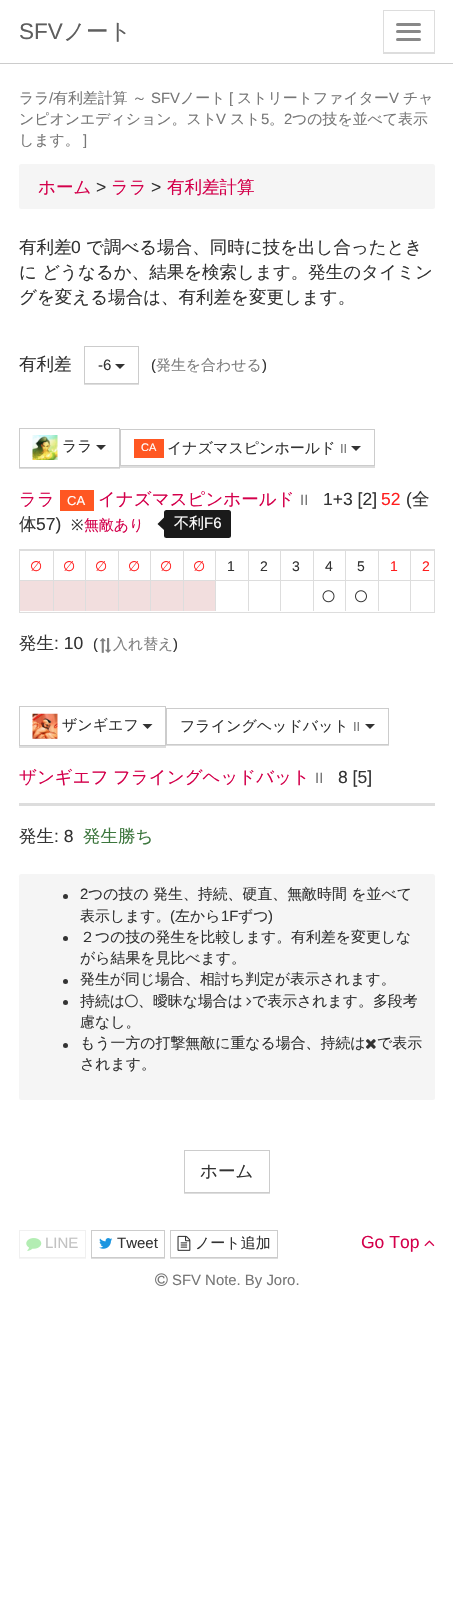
#include "include/core/SkBlurTypes.h"
#include "include/core/SkCanvas.h"
#include "include/core/SkData.h"
#include "include/core/SkFont.h"
#include "include/core/SkFontMgr.h"
#include "include/core/SkImage.h"
#include "include/core/SkMaskFilter.h"
#include "include/core/SkPaint.h"
#include "include/core/SkPathBuilder.h"
#include "include/core/SkTextBlob.h"
#include "include/effects/SkDashPathEffect.h"
#include "include/effects/SkGradientShader.h"
#include "include/utils/SkParsePath.h"

extern sk_sp<SkFontMgr> fontMgr;

void draw(SkCanvas* canvas) {
    SkPaint p;
    p.setAntiAlias(true);
    auto font = [&](const char* family, int weight, float size, bool italic = false) {
        SkFontStyle style(weight, SkFontStyle::kNormal_Width,
            italic ? SkFontStyle::kItalic_Slant : SkFontStyle::kUpright_Slant);
        SkFont result(fontMgr->matchFamilyStyle(family, style), size);
        result.setSubpixel(true);
        return result;
    };
    auto drawPhoto = [&](const char* path, float l, float t, float r, float b) {
        auto image = SkImages::DeferredFromEncodedData(SkData::MakeFromFileName(path));
        canvas->drawImageRect(image, SkRect::MakeLTRB(l, t, r, b), SkSamplingOptions());
    };
    canvas->clear(0xFFFFFFFF);
    p.setColor(0xFFCCCCCC);
    canvas->drawRect(SkRect::MakeLTRB(0, 63, 453, 64), p);
    auto font1 = font("Liberation Sans", 400, 22.5f);
    p.setColor(0xFF5E5E5E);
    canvas->drawString("SFV", 19, 39, font1, p);
    auto font2 = font("WenQuanYi Zen Hei", 500, 22.5f);
    canvas->drawString("ノート", 63, 39, font2, p);
    p.setColor(0xFFDDDDDD);
    canvas->drawRect(SkRect::MakeLTRB(383, 53, 435, 54), p);
    p.setStyle(SkPaint::kStroke_Style);
    p.setStrokeWidth(1);
    canvas->drawRect(SkRect::MakeLTRB(383.5f, 10.5f, 434.5f, 52.5f), p);
    p.setStyle(SkPaint::kFill_Style);
    p.setColor(0xFF888888);
    canvas->drawRoundRect(SkRect::MakeLTRB(396, 23, 421, 26), 1.5f, 1.5f, p);
    canvas->drawRoundRect(SkRect::MakeLTRB(396, 30, 421, 33), 1.5f, 1.5f, p);
    canvas->drawRoundRect(SkRect::MakeLTRB(396, 38, 421, 41), 1.5f, 1.5f, p);
    auto font3 = font("WenQuanYi Zen Hei", 500, 14.9f);
    p.setColor(0xFF777777);
    canvas->drawString("ララ", 19, 103, font3, p);
    auto font4 = font("Liberation Sans", 400, 14.9f);
    canvas->drawString("/", 49, 103, font4, p);
    canvas->drawString("有利差計算", 53, 103, font3, p);
    canvas->drawString("～", 132, 103, font3, p);
    canvas->drawString("SFV", 151, 103, font4, p);
    canvas->drawString("ノート", 180, 103, font3, p);
    canvas->drawString("[", 229, 103, font4, p);
    canvas->drawString("ストリートファイター", 237, 103, font3, p);
    canvas->drawString("V", 389, 103, font4, p);
    canvas->drawString("チャ", 403, 103, font3, p);
    canvas->drawString("ンピオンエディション。スト", 19, 124, font3, p);
    canvas->drawString("V", 216, 124, font4, p);
    canvas->drawString("スト", 230, 124, font3, p);
    canvas->drawString("5", 261, 124, font4, p);
    canvas->drawString("。", 269, 124, font3, p);
    canvas->drawString("2", 284, 124, font4, p);
    canvas->drawString("つの技を並べて表示", 292, 124, font3, p);
    canvas->drawString("します。", 19, 145, font3, p);
    canvas->drawString("]", 83, 145, font4, p);
    p.setColor(0xFFF5F5F5);
    canvas->drawRoundRect(SkRect::MakeLTRB(19, 164, 435, 209), 2.5f, 2.5f, p);
    auto font5 = font("WenQuanYi Zen Hei", 500, 17.5f);
    p.setColor(0xFFD4004B);
    canvas->drawString("ホーム", 38, 193, font5, p);
    auto font6 = font("Liberation Sans", 400, 17.5f);
    p.setColor(0xFF333333);
    canvas->drawString(">", 96, 193, font6, p);
    p.setColor(0xFFD4004B);
    canvas->drawString("ララ", 111, 193, font5, p);
    p.setColor(0xFF333333);
    canvas->drawString(">", 151, 193, font6, p);
    p.setColor(0xFFD4004B);
    canvas->drawString("有利差計算", 167, 193, font5, p);
    p.setColor(0xFF333333);
    canvas->drawString("有利差", 19, 253, font5, p);
    canvas->drawString("0", 71, 253, font6, p);
    {
        const struct { const char* s; float x, y; } items[] = {
            {"で調べる場合、同時に技を出し合ったとき", 86, 253},
            {"に どうなるか、結果を検索します。発生のタイミン", 19, 278},
            {"グを変える場合は、有利差を変更します。", 19, 303},
            {"有利差", 19, 370},
        };
        for (auto [s, x, y] : items) {
            canvas->drawString(s, x, y, font5, p);
        }
    }
    p.setColor(0xFFDDDDDD);
    canvas->drawPath(SkPathBuilder().moveTo(84, 384).lineTo(84, 385).lineTo(139, 385).lineTo(139, 348).lineTo(139, 384).close().detach(), p);
    p.setStyle(SkPaint::kStroke_Style);
    p.setColor(0xFFCCCCCC);
    canvas->drawRect(SkRect::MakeLTRB(84.5f, 346.5f, 138.5f, 383.5f), p);
    auto font7 = font("Liberation Sans", 400, 15);
    p.setStyle(SkPaint::kFill_Style);
    p.setColor(0xFF333333);
    canvas->drawString("-6", 98, 370, font7, p);
    canvas->drawPath(SkPathBuilder().moveTo(115, 364).lineTo(125, 364).lineTo(120, 369).close().detach(), p);
    canvas->drawString("(", 151, 370, font4, p);
    p.setColor(0xFF808080);
    canvas->drawString("発生を合わせる", 156, 370, font3, p);
    p.setColor(0xFF333333);
    canvas->drawString(")", 262, 370, font4, p);
    p.setColor(0xFFDDDDDD);
    canvas->drawRect(SkRect::MakeLTRB(19, 468, 120, 469), p);
    p.setStyle(SkPaint::kStroke_Style);
    p.setColor(0xFFCCCCCC);
    canvas->drawRect(SkRect::MakeLTRB(19.5f, 428.5f, 119.5f, 467.5f), p);
    drawPhoto("media/1.png", 32, 435, 58, 460);
    auto font8 = font("WenQuanYi Zen Hei", 500, 15);
    p.setStyle(SkPaint::kFill_Style);
    p.setColor(0xFF333333);
    canvas->drawString("ララ", 62, 451, font8, p);
    canvas->drawPath(SkPathBuilder().moveTo(96, 445).lineTo(106, 445).lineTo(101, 450).close().detach(), p);
    p.setColor(0xFFDDDDDD);
    canvas->drawRect(SkRect::MakeLTRB(120, 466, 375, 468), p);
    p.setStyle(SkPaint::kStroke_Style);
    p.setColor(0xFFCCCCCC);
    canvas->drawRect(SkRect::MakeLTRB(120.5f, 429.5f, 374.5f, 465.5f), p);
    p.setStyle(SkPaint::kFill_Style);
    p.setColor(0xFFFF5722);
    canvas->drawRect(SkRect::MakeLTRB(134, 439, 164, 458), p);
    auto font9 = font("Liberation Sans", 400, 11);
    p.setColor(0xFFFFFFFF);
    canvas->drawString("CA", 141, 451, font9, p);
    p.setColor(0xFF333333);
    canvas->drawString("イナズマスピンホールド", 167, 453, font8, p);
    auto font10 = font("Liberation Sans", 400, 13);
    p.setColor(0xFF777777);
    canvas->drawString("II", 340, 453, font10, p);
    p.setColor(0xFF333333);
    canvas->drawPath(SkPathBuilder().moveTo(351, 446).lineTo(361, 446).lineTo(356, 451).close().detach(), p);
    p.setColor(0xFFD4004B);
    canvas->drawString("ララ", 19, 505, font5, p);
    p.setColor(0xFFFF5722);
    canvas->drawRect(SkRect::MakeLTRB(60, 490, 94, 511), p);
    p.setColor(0xFFFFFFFF);
    canvas->drawString("CA", 67, 505, font10, p);
    p.setColor(0xFFD4004B);
    canvas->drawString("イナズマスピンホールド", 98, 505, font5, p);
    p.setColor(0xFF777777);
    canvas->drawString("II", 300, 505, font4, p);
    p.setColor(0xFF333333);
    canvas->drawString("1+3 [2]", 323, 505, font6, p);
    p.setColor(0xFFFF1E1E);
    canvas->drawString("52", 381, 505, font6, p);
    p.setColor(0xFF333333);
    canvas->drawString("(", 406, 505, font6, p);
    canvas->drawString("全", 412, 505, font5, p);
    canvas->drawString("体", 19, 530, font5, p);
    canvas->drawString("57)", 36, 530, font6, p);
    auto font11 = font("Noto Sans", 400, 14.9f);
    canvas->drawString("※", 71, 530, font11, p);
    p.setColor(0xFFD4004B);
    canvas->drawString("無敵あり", 84, 530, font3, p);
    p.setColor(0xFF1A1A1A);
    canvas->drawPath(SkPathBuilder().moveTo(164, 517.5f).lineTo(164, 530).lineTo(157.5f, 524).close().detach(), p);
    canvas->drawRoundRect(SkRect::MakeLTRB(164, 510, 231, 538), 2.5f, 2.5f, p);
    p.setColor(0xFFFFFFFF);
    canvas->drawString("不利", 174, 528, font8, p);
    canvas->drawString("F6", 204, 528, font7, p);
    p.setStyle(SkPaint::kStroke_Style);
    p.setColor(0xFFDDDDDD);
    canvas->drawRect(SkRect::MakeLTRB(19.5f, 549.5f, 434.5f, 612.5f), p);
    p.setStyle(SkPaint::kFill_Style);
    {
        const struct { float l, t, r, b; SkColor color; } items[] = {
            {410, 550, 434, 551, 0xFFDDDDDD},
            {410, 580, 434, 581, 0xFFDDDDDD},
            {410, 580, 411, 611, 0xFFDDDDDD},
            {378, 580, 411, 581, 0xFFDDDDDD},
            {410, 550, 411, 581, 0xFFDDDDDD},
            {378, 550, 411, 551, 0xFFDDDDDD},
            {378, 580, 379, 611, 0xFFDDDDDD},
            {345, 580, 379, 581, 0xFFDDDDDD},
            {378, 550, 379, 581, 0xFFDDDDDD},
            {345, 550, 379, 551, 0xFFDDDDDD},
            {345, 580, 346, 611, 0xFFDDDDDD},
            {313, 580, 346, 581, 0xFFDDDDDD},
            {345, 550, 346, 581, 0xFFDDDDDD},
            {313, 550, 346, 551, 0xFFDDDDDD},
            {313, 580, 314, 611, 0xFFDDDDDD},
            {280, 580, 314, 581, 0xFFDDDDDD},
            {313, 550, 314, 581, 0xFFDDDDDD},
            {280, 550, 314, 551, 0xFFDDDDDD},
            {280, 580, 281, 611, 0xFFDDDDDD},
            {248, 580, 281, 581, 0xFFDDDDDD},
            {280, 550, 281, 581, 0xFFDDDDDD},
            {248, 550, 281, 551, 0xFFDDDDDD},
            {248, 580, 249, 611, 0xFFDDDDDD},
            {215, 580, 249, 581, 0xFFDDDDDD},
            {248, 550, 249, 581, 0xFFDDDDDD},
            {215, 550, 249, 551, 0xFFDDDDDD},
            {215, 580, 216, 611, 0xFFDDDDDD},
            {183, 580, 216, 581, 0xFFDDDDDD},
            {215, 550, 216, 581, 0xFFDDDDDD},
            {183, 550, 216, 551, 0xFFDDDDDD},
            {183, 580, 184, 611, 0xFFDDDDDD},
            {150, 580, 184, 581, 0xFFDDDDDD},
            {183, 550, 184, 581, 0xFFDDDDDD},
            {150, 550, 184, 551, 0xFFDDDDDD},
            {150, 580, 151, 611, 0xFFDDDDDD},
            {118, 580, 151, 581, 0xFFDDDDDD},
            {150, 550, 151, 581, 0xFFDDDDDD},
            {118, 550, 151, 551, 0xFFDDDDDD},
            {118, 580, 119, 611, 0xFFDDDDDD},
            {85, 580, 119, 581, 0xFFDDDDDD},
            {118, 550, 119, 581, 0xFFDDDDDD},
            {85, 550, 119, 551, 0xFFDDDDDD},
            {85, 580, 86, 611, 0xFFDDDDDD},
            {53, 580, 86, 581, 0xFFDDDDDD},
            {85, 550, 86, 581, 0xFFDDDDDD},
            {53, 550, 86, 551, 0xFFDDDDDD},
            {53, 580, 54, 611, 0xFFDDDDDD},
            {20, 580, 54, 581, 0xFFDDDDDD},
            {53, 550, 54, 581, 0xFFDDDDDD},
            {20, 550, 54, 551, 0xFFDDDDDD},
        };
        for (auto [l, t, r, b, color] : items) {
            p.setColor(color);
            canvas->drawRect(SkRect::MakeLTRB(l, t, r, b), p);
        }
    }
    auto font12 = font("DejaVu Sans", 400, 14);
    p.setColor(0xFFFF1E1E);
    {
        const struct { const char* s; float x, y; } items[] = {
            {"∅", 30, 571},
            {"∅", 63, 571},
            {"∅", 95, 571},
            {"∅", 128, 571},
            {"∅", 160, 571},
            {"∅", 193, 571},
        };
        for (auto [s, x, y] : items) {
            canvas->drawString(s, x, y, font12, p);
        }
    }
    auto font13 = font("Liberation Sans", 400, 14);
    p.setColor(0xFF333333);
    {
        const struct { const char* s; float x, y; } items[] = {
            {"1", 227, 571},
            {"2", 260, 571},
            {"3", 292, 571},
            {"4", 325, 571},
            {"5", 357, 571},
        };
        for (auto [s, x, y] : items) {
            canvas->drawString(s, x, y, font13, p);
        }
    }
    p.setColor(0xFFFF1E1E);
    canvas->drawString("1", 390, 571, font13, p);
    canvas->drawString("2", 422, 571, font13, p);
    {
        const struct { float l, t, r, b; SkColor color; } items[] = {
            {20, 581, 53, 611, 0xFFF2DEDE},
            {54, 581, 85, 611, 0xFFF2DEDE},
            {86, 581, 118, 611, 0xFFF2DEDE},
            {119, 581, 150, 611, 0xFFF2DEDE},
            {151, 581, 183, 611, 0xFFF2DEDE},
            {184, 581, 215, 611, 0xFFF2DEDE},
        };
        for (auto [l, t, r, b, color] : items) {
            p.setColor(color);
            canvas->drawRect(SkRect::MakeLTRB(l, t, r, b), p);
        }
    }
    drawPhoto("media/2.png", 322, 590, 335, 603);
    drawPhoto("media/3.png", 355, 590, 367, 603);
    p.setColor(0xFF333333);
    canvas->drawString("発生", 19, 649, font5, p);
    canvas->drawString(": 10", 54, 649, font6, p);
    canvas->drawString("(", 93, 649, font4, p);
    drawPhoto("media/4.png", 99, 638, 111, 653);
    p.setColor(0xFF808080);
    canvas->drawString("入れ替え", 113, 649, font3, p);
    p.setColor(0xFF333333);
    canvas->drawString(")", 173, 649, font4, p);
    p.setColor(0xFFDDDDDD);
    canvas->drawRect(SkRect::MakeLTRB(19, 746, 166, 748), p);
    p.setStyle(SkPaint::kStroke_Style);
    p.setColor(0xFFCCCCCC);
    canvas->drawRect(SkRect::MakeLTRB(19.5f, 706.5f, 165.5f, 745.5f), p);
    drawPhoto("media/5.png", 32, 713, 58, 739);
    p.setStyle(SkPaint::kFill_Style);
    p.setColor(0xFF333333);
    canvas->drawString("ザンギエフ", 62, 730, font8, p);
    canvas->drawPath(SkPathBuilder().moveTo(142.5f, 724).lineTo(152.5f, 724).lineTo(147.5f, 729).close().detach(), p);
    p.setColor(0xFFDDDDDD);
    canvas->drawPath(SkPathBuilder().moveTo(166, 709).lineTo(166, 746).lineTo(389, 746).lineTo(389, 709).lineTo(389, 745).lineTo(166, 745).close().detach(), p);
    p.setStyle(SkPaint::kStroke_Style);
    p.setColor(0xFFCCCCCC);
    canvas->drawRect(SkRect::MakeLTRB(166.5f, 708.5f, 388.5f, 744.5f), p);
    p.setStyle(SkPaint::kFill_Style);
    p.setColor(0xFF333333);
    canvas->drawString("フライングヘッドバット", 180, 731, font8, p);
    p.setColor(0xFF777777);
    canvas->drawString("II", 353, 731, font10, p);
    p.setColor(0xFF333333);
    canvas->drawPath(SkPathBuilder().moveTo(365, 724).lineTo(375, 724).lineTo(370, 729).close().detach(), p);
    p.setColor(0xFFD4004B);
    canvas->drawString("ザンギエフ", 19, 783, font5, p);
    canvas->drawString("フライングヘッドバット", 113, 783, font5, p);
    p.setColor(0xFF777777);
    canvas->drawString("II", 315, 783, font4, p);
    p.setColor(0xFF333333);
    canvas->drawString("8 [5]", 338, 783, font6, p);
    p.setColor(0xFFDDDDDD);
    canvas->drawRect(SkRect::MakeLTRB(19, 803, 435, 806), p);
    p.setColor(0xFF333333);
    canvas->drawString("発生", 19, 842, font5, p);
    canvas->drawString(": 8", 54, 842, font6, p);
    p.setColor(0xFF3C763D);
    canvas->drawString("発生勝ち", 83, 842, font5, p);
    p.setColor(0xFFF5F5F5);
    canvas->drawRoundRect(SkRect::MakeLTRB(19, 874, 435, 1100), 2.5f, 2.5f, p);
    p.setColor(0xFF333333);
    canvas->drawCircle(65.5f, 896.5f, 2.5f, p);
    canvas->drawString("2", 80, 899, font4, p);
    canvas->drawString("つの技の 発生、持続、硬直、無敵時間 を並べて", 88, 899, font3, p);
    canvas->drawString("表示します。", 80, 921, font3, p);
    canvas->drawString("(", 170, 921, font4, p);
    canvas->drawString("左から", 175, 921, font3, p);
    canvas->drawString("1F", 221, 921, font4, p);
    canvas->drawString("ずつ", 238, 921, font3, p);
    canvas->drawString(")", 268, 921, font4, p);
    canvas->drawCircle(65.5f, 938.5f, 2.5f, p);
    canvas->drawString("２つの技の発生を比較します。有利差を変更しな", 80, 942, font3, p);
    canvas->drawString("がら結果を見比べます。", 80, 963, font3, p);
    canvas->drawCircle(65.5f, 981.5f, 2.5f, p);
    canvas->drawString("発生が同じ場合、相討ち判定が表示されます。", 80, 984, font3, p);
    canvas->drawCircle(65.5f, 1002.5f, 2.5f, p);
    canvas->drawString("持続は", 80, 1006, font3, p);
    drawPhoto("media/6.png", 125, 994, 138, 1008);
    canvas->drawString("、曖昧な場合は", 138, 1006, font3, p);
    drawPhoto("media/7.png", 246, 997, 252, 1006);
    canvas->drawString("で表示されます。多段考", 252, 1006, font3, p);
    canvas->drawString("慮なし。", 80, 1027, font3, p);
    canvas->drawCircle(65.5f, 1045.5f, 2.5f, p);
    canvas->drawString("もう一方の打撃無敵に重なる場合、持続は", 80, 1048, font3, p);
    drawPhoto("media/8.png", 366, 1039, 376, 1049);
    canvas->drawString("で表示", 377, 1048, font3, p);
    canvas->drawString("されます。", 80, 1069, font3, p);
    p.setColor(0xFFDDDDDD);
    canvas->drawRect(SkRect::MakeLTRB(184, 1193, 270, 1194), p);
    p.setStyle(SkPaint::kStroke_Style);
    p.setColor(0xFFCCCCCC);
    canvas->drawRect(SkRect::MakeLTRB(184.5f, 1150.5f, 269.5f, 1192.5f), p);
    p.setStyle(SkPaint::kFill_Style);
    p.setColor(0xFF333333);
    canvas->drawString("ホーム", 200, 1177, font5, p);
    p.setColor(0xFFF5F5F5);
    canvas->drawRect(SkRect::MakeLTRB(19, 1258, 86, 1259), p);
    p.setStyle(SkPaint::kStroke_Style);
    p.setColor(0xFFF0F0F0);
    canvas->drawRect(SkRect::MakeLTRB(19.5f, 1230.5f, 85.5f, 1257.5f), p);
    drawPhoto("media/9.png", 26, 1238, 42, 1251);
    p.setStyle(SkPaint::kFill_Style);
    p.setColor(0xFFC2C2C2);
    canvas->drawString("LINE", 45, 1248, font7, p);
    p.setColor(0xFFDDDDDD);
    canvas->drawPath(SkPathBuilder().moveTo(91, 1231).lineTo(91, 1259).lineTo(165, 1259).lineTo(165, 1258).lineTo(91, 1258).close().detach(), p);
    p.setStyle(SkPaint::kStroke_Style);
    p.setColor(0xFFCCCCCC);
    canvas->drawRect(SkRect::MakeLTRB(91.5f, 1230.5f, 164.5f, 1257.5f), p);
    drawPhoto("media/10.png", 99, 1238, 113, 1249);
    p.setStyle(SkPaint::kFill_Style);
    p.setColor(0xFF333333);
    canvas->drawString("Tweet", 117, 1248, font7, p);
    p.setColor(0xFFDDDDDD);
    canvas->drawPath(SkPathBuilder().moveTo(170, 1258).lineTo(170, 1259).lineTo(278, 1259).lineTo(278, 1231).lineTo(278, 1258).close().detach(), p);
    p.setStyle(SkPaint::kStroke_Style);
    p.setColor(0xFFCCCCCC);
    canvas->drawRect(SkRect::MakeLTRB(170.5f, 1230.5f, 277.5f, 1257.5f), p);
    drawPhoto("media/11.png", 177, 1235, 191, 1251);
    p.setStyle(SkPaint::kFill_Style);
    p.setColor(0xFF333333);
    canvas->drawString("ノート追加", 195, 1248, font8, p);
    p.setColor(0xFFD4004B);
    canvas->drawString("Go Top", 361, 1248, font6, p);
    drawPhoto("media/12.png", 424, 1240, 435, 1247);
    drawPhoto("media/13.png", 155, 1273, 168, 1287);
    p.setColor(0xFF777777);
    canvas->drawString("SFV Note. By Joro.", 172, 1285, font4, p);
}
